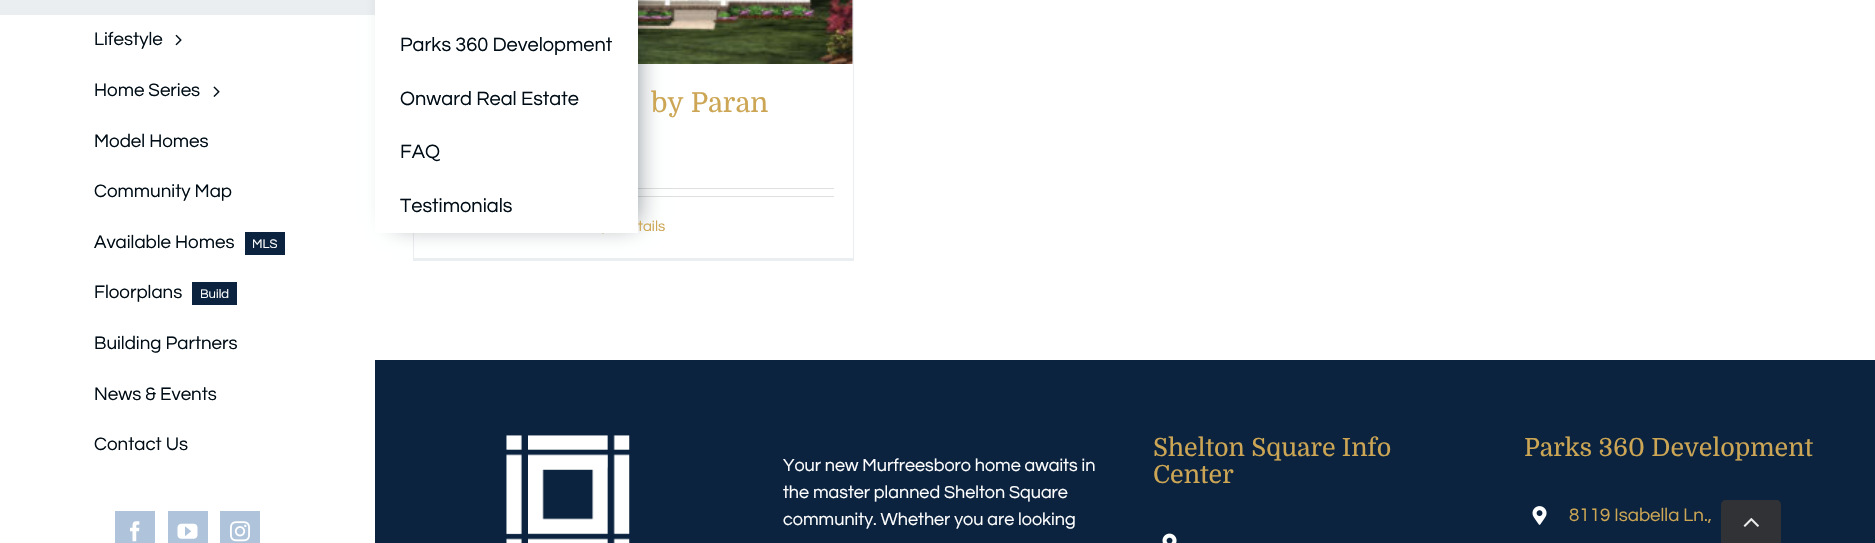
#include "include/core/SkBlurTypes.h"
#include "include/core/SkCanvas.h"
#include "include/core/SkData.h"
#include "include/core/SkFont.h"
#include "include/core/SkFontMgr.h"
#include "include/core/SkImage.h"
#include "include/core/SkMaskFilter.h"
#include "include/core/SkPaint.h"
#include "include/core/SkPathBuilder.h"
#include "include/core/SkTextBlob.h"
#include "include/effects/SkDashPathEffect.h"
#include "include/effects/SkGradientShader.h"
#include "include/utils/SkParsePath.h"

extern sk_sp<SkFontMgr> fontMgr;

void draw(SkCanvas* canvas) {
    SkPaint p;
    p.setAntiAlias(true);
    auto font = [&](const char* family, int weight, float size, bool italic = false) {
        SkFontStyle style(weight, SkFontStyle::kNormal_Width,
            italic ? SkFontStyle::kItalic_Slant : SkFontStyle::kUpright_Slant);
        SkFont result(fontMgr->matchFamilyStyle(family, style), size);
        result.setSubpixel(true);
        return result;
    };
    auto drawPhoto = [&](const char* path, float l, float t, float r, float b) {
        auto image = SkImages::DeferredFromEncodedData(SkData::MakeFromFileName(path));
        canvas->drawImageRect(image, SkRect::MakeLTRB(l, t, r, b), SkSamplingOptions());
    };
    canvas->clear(0xFFFFFFFF);
    auto font1 = font("Questrial", 400, 18.75f);
    p.setColor(0xFF000D16);
    canvas->drawString("Lifestyle", 94, 45, font1, p);
    drawPhoto("media/1.png", 175, 34, 182, 46);
    {
        const struct { float l, t, r, b; SkColor color; } items[] = {
            {0, 0, 375, 15, 0xFFEBEEF1},
            {853, 0, 854, 260, 0xFFEBEEF1},
            {413, 258, 854, 261, 0xFFEBEEF1},
            {413, 233, 414, 260, 0xFFEBEEF1},
        };
        for (auto [l, t, r, b, color] : items) {
            p.setColor(color);
            canvas->drawRect(SkRect::MakeLTRB(l, t, r, b), p);
        }
    }
    drawPhoto("media/6.png", 638, 0, 853, 64);
    p.setColor(0xFFE0DEDE);
    canvas->drawRect(SkRect::MakeLTRB(638, 188, 834, 189), p);
    canvas->drawRect(SkRect::MakeLTRB(638, 196, 834, 197), p);
    drawPhoto("media/7.png", 602, 233, 604, 234);
    p.setColor(0x80000D16);
    p.setMaskFilter(SkMaskFilter::MakeBlur(kNormal_SkBlurStyle, 12.5f));
    canvas->drawRect(SkRect::MakeLTRB(394, -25, 636, 223), p);
    p.setMaskFilter(nullptr);
    p.setColor(0xFFFFFFFF);
    canvas->drawRect(SkRect::MakeLTRB(375, 0, 638, 233), p);
    auto font2 = font("Questrial", 400, 20);
    p.setColor(0xFF000D16);
    {
        const struct { const char* s; float x, y; } items[] = {
            {"Parks 360 Development", 400, 51},
            {"Onward Real Estate", 400, 105},
            {"FAQ", 400, 158},
            {"Testimonials", 400, 212},
        };
        for (auto [s, x, y] : items) {
            canvas->drawString(s, x, y, font2, p);
        }
    }
    canvas->drawString("Home Series", 94, 96, font1, p);
    drawPhoto("media/2.png", 213, 86, 220, 97);
    {
        const struct { const char* s; float x, y; } items[] = {
            {"Model Homes", 94, 147},
            {"Community Map", 94, 197},
            {"Available Homes", 94, 248},
        };
        for (auto [s, x, y] : items) {
            canvas->drawString(s, x, y, font1, p);
        }
    }
    p.setColor(0xFF0B233F);
    canvas->drawRect(SkRect::MakeLTRB(245, 232, 285, 255), p);
    auto font3 = font("Questrial", 400, 13);
    p.setColor(0xFFFFFFFF);
    canvas->drawString("MLS", 252, 248, font3, p);
    p.setColor(0xFF000D16);
    canvas->drawString("Floorplans", 94, 298, font1, p);
    p.setColor(0xFF0B233F);
    canvas->drawRect(SkRect::MakeLTRB(192, 282, 237, 305), p);
    p.setColor(0xFFFFFFFF);
    canvas->drawString("Build", 200, 298, font3, p);
    p.setColor(0xFF000D16);
    {
        const struct { const char* s; float x, y; } items[] = {
            {"Building Partners", 94, 349},
            {"News & Events", 94, 400},
            {"Contact Us", 94, 450},
        };
        for (auto [s, x, y] : items) {
            canvas->drawString(s, x, y, font1, p);
        }
    }
    p.setColor(0xFFAFC4DB);
    canvas->drawRect(SkRect::MakeLTRB(115, 511, 155, 543), p);
    drawPhoto("media/3.png", 130, 521, 140, 542);
    canvas->drawRect(SkRect::MakeLTRB(168, 511, 208, 543), p);
    drawPhoto("media/4.png", 177, 523, 198, 539);
    canvas->drawRect(SkRect::MakeLTRB(220, 511, 260, 543), p);
    drawPhoto("media/5.png", 230, 521, 250, 542);
    auto font4 = font("Domine", 400, 27.5f);
    p.setColor(0xFFCCA654);
    canvas->drawString("by Paran", 651, 112, font4, p);
    auto font5 = font("Questrial", 400, 15);
    canvas->drawString("tails", 638, 231, font5, p);
    p.setColor(0xFF0B233F);
    canvas->drawRect(SkRect::MakeLTRB(375, 360, 1875, 543), p);
    drawPhoto("media/8.png", 506, 435, 630, 543);
    auto font6 = font("Questrial", 400, 18);
    p.setColor(0xFFFFFFFF);
    {
        const struct { const char* s; float x, y; } items[] = {
            {"Your new Murfreesboro home awaits in", 783, 471},
            {"the master planned Shelton Square", 783, 498},
            {"community. Whether you are looking", 783, 525},
        };
        for (auto [s, x, y] : items) {
            canvas->drawString(s, x, y, font6, p);
        }
    }
    auto font7 = font("Domine", 400, 25);
    p.setColor(0xFFCCA654);
    canvas->drawString("Shelton Square Info", 1153, 456, font7, p);
    canvas->drawString("Center", 1153, 483, font7, p);
    drawPhoto("media/9.png", 1162, 533, 1177, 543);
    canvas->drawString("Parks 360 Development", 1524, 456, font7, p);
    drawPhoto("media/10.png", 1532, 506, 1547, 525);
    canvas->drawString("8119 Isabella Ln.,", 1569, 521, font1, p);
    p.setColor(0xE6333333);
    canvas->drawPath(SkPathBuilder().moveTo(1726, 500).lineTo(1776, 500).cubicTo(1779, 500, 1781, 502, 1781, 505).lineTo(1781, 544).lineTo(1721, 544).lineTo(1721, 505).cubicTo(1721, 502, 1723, 500, 1726, 500).close().detach(), p);
    drawPhoto("media/11.png", 1743, 518, 1759, 527);
}
